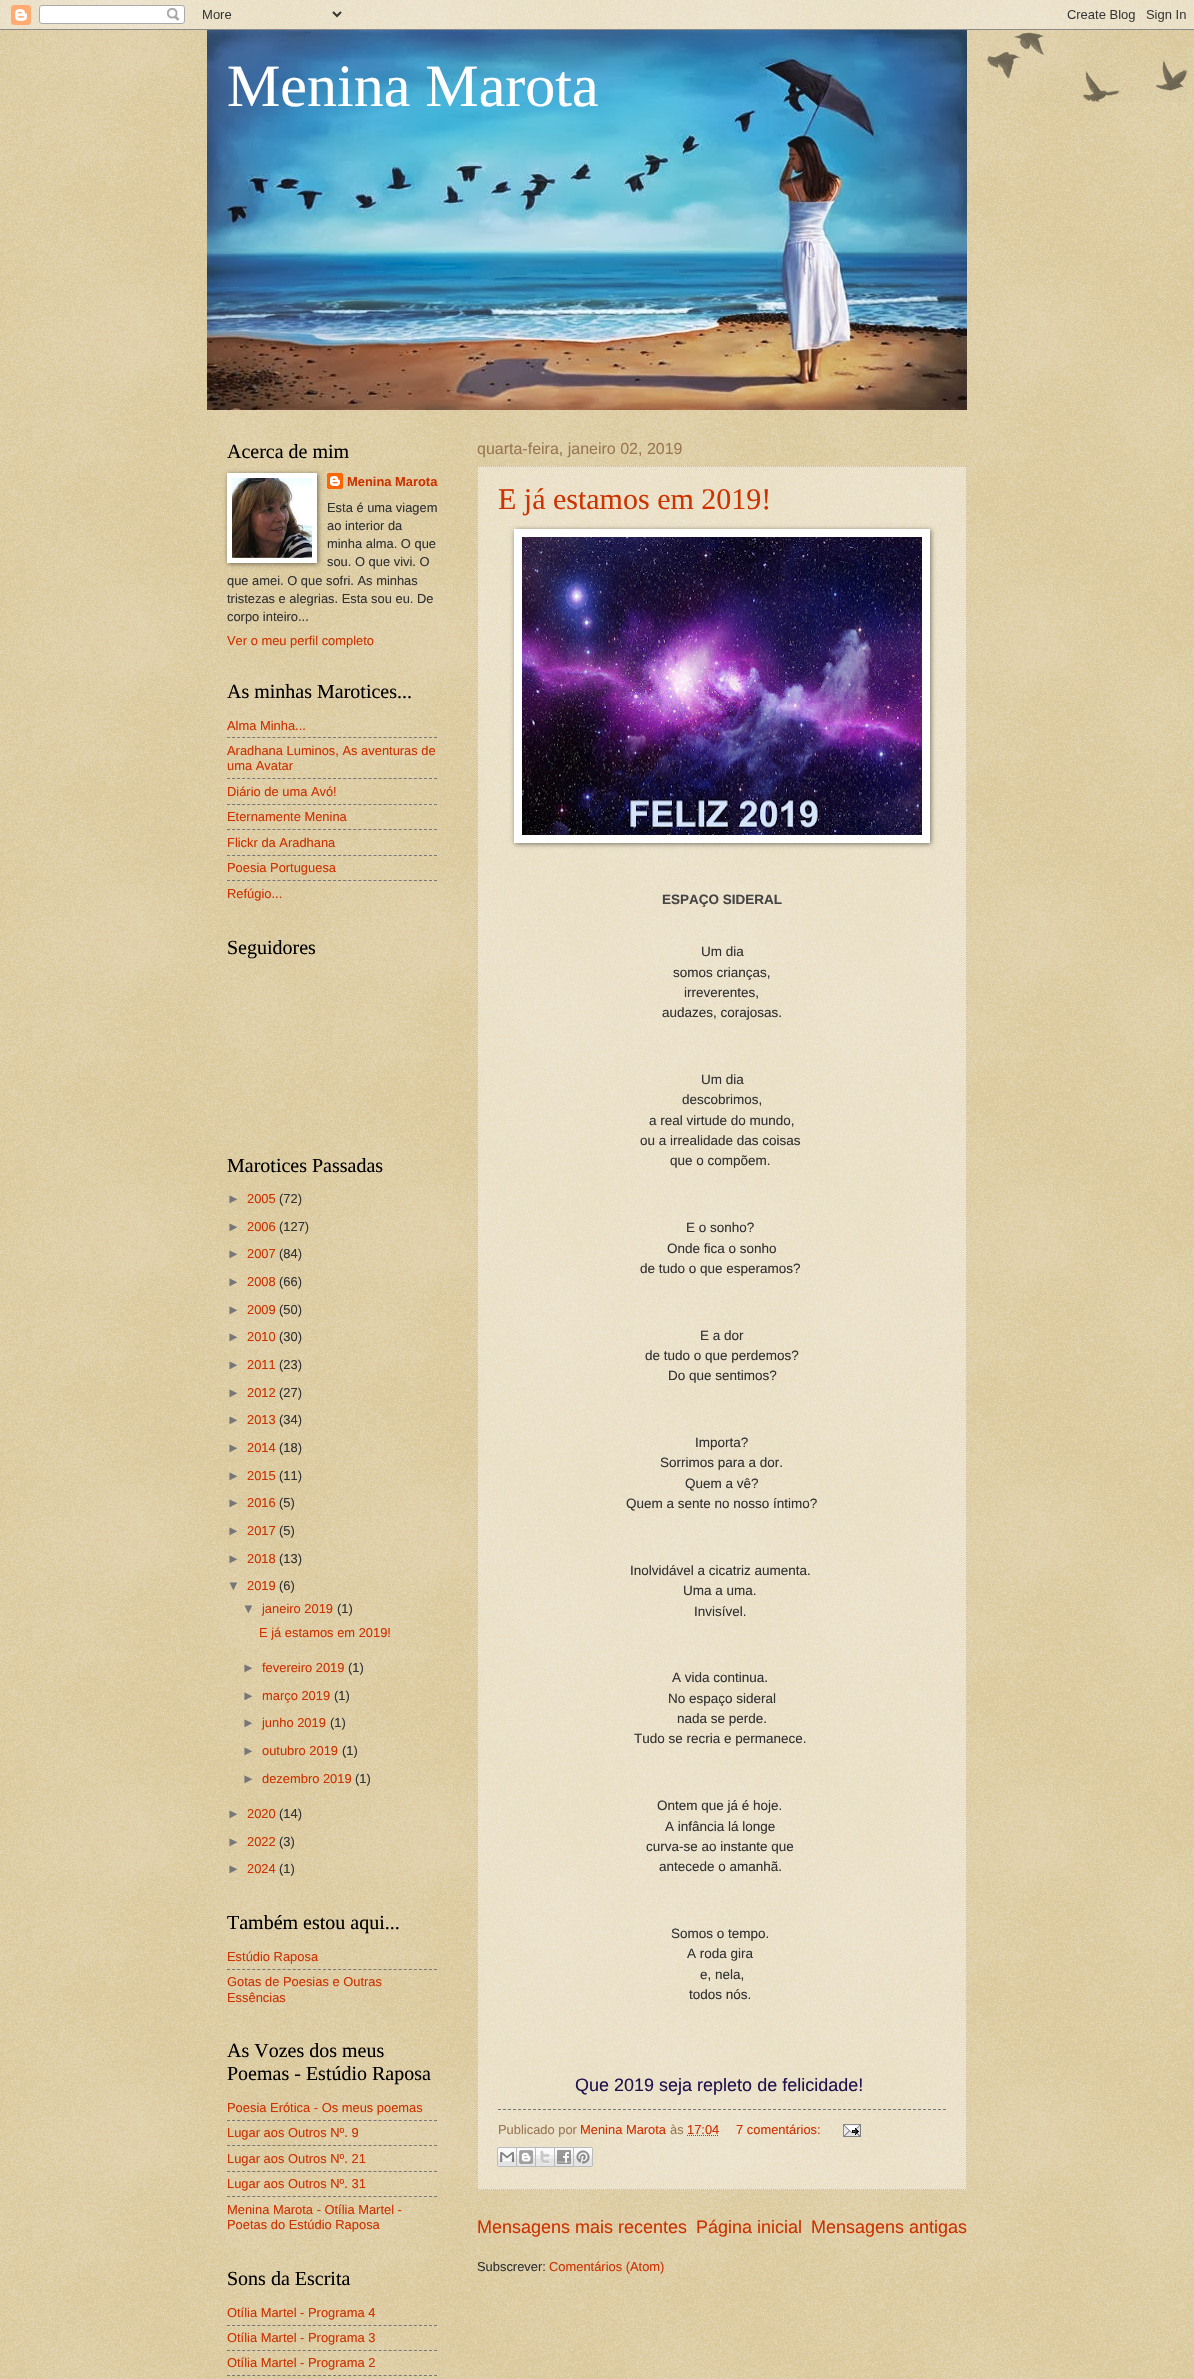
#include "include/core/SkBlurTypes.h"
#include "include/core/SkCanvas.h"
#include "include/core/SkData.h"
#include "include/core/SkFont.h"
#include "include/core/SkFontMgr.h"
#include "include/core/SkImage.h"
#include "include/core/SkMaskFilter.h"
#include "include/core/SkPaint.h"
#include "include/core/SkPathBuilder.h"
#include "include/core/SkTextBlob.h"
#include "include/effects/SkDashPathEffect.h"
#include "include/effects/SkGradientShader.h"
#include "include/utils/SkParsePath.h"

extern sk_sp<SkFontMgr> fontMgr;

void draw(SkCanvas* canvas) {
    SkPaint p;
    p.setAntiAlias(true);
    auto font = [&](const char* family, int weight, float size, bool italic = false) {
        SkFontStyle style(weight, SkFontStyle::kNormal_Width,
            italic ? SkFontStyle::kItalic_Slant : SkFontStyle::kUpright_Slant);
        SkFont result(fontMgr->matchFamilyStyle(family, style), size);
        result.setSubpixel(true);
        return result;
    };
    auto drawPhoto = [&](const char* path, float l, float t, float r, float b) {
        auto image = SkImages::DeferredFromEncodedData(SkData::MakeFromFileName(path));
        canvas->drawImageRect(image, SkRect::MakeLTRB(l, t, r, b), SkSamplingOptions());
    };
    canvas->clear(0xFFC0A154);
    drawPhoto("media/1.png", 0, 0, 1194, 2379);
    drawPhoto("media/2.png", 0, 0, 1194, 30);
    drawPhoto("media/3.png", 207, 30, 967, 410);
    auto font1 = font("Liberation Serif", 400, 60);
    p.setColor(0xFFFFFFFF);
    canvas->drawString("Menina Marota", 227, 106, font1, p);
    auto font2 = font("Liberation Serif", 400, 20);
    p.setColor(0xFF000000);
    canvas->drawString("Acerca de mim", 227, 458, font2, p);
    p.setColor(0x80000000);
    p.setMaskFilter(SkMaskFilter::MakeBlur(kNormal_SkBlurStyle, 2.5f));
    canvas->drawRect(SkRect::MakeLTRB(228, 474, 318, 564), p);
    p.setMaskFilter(nullptr);
    p.setColor(0xFFFFFFFF);
    canvas->drawRect(SkRect::MakeLTRB(227, 473, 317, 563), p);
    drawPhoto("media/4.png", 232, 478, 312, 558);
    drawPhoto("media/5.png", 327, 473, 343, 489);
    auto font3 = font("Liberation Sans", 700, 12.9f);
    p.setColor(0xFFCC3300);
    canvas->drawString("Menina Marota", 347, 486, font3, p);
    auto font4 = font("Liberation Sans", 400, 12.9f);
    p.setColor(0xFF333333);
    {
        const struct { const char* s; float x, y; } items[] = {
            {"Esta é uma viagem", 327, 512},
            {"ao interior da", 327, 530},
            {"minha alma. O que", 327, 548},
            {"sou. O que vivi. O", 327, 566},
            {"que amei. O que sofri. As minhas", 227, 585},
            {"tristezas e alegrias. Esta sou eu. De", 227, 603},
            {"corpo inteiro...", 227, 621},
        };
        for (auto [s, x, y] : items) {
            canvas->drawString(s, x, y, font4, p);
        }
    }
    p.setColor(0xFFCC3300);
    canvas->drawString("Ver o meu perfil completo", 227, 645, font4, p);
    p.setColor(0xFF000000);
    canvas->drawString("As minhas Marotices...", 227, 698, font2, p);
    p.setColor(0xFFCC3300);
    canvas->drawString("Alma Minha...", 227, 730, font4, p);
    p.setStyle(SkPaint::kStroke_Style);
    p.setStrokeWidth(1);
    p.setColor(0xFF777777);
    p.setPathEffect(SkDashPathEffect::Make({{3, 2.05f}}, 0));
    canvas->drawPath(SkPathBuilder().moveTo(227, 737.5f).lineTo(437, 737.5f).detach(), p);
    p.setPathEffect(nullptr);
    p.setStyle(SkPaint::kFill_Style);
    p.setColor(0xFFCC3300);
    canvas->drawString("Aradhana Luminos, As aventuras de", 227, 755, font4, p);
    canvas->drawString("uma Avatar", 227, 770, font4, p);
    p.setStyle(SkPaint::kStroke_Style);
    p.setColor(0xFF777777);
    p.setPathEffect(SkDashPathEffect::Make({{3, 2.05f}}, 0));
    canvas->drawPath(SkPathBuilder().moveTo(227, 778.5f).lineTo(437, 778.5f).detach(), p);
    p.setPathEffect(nullptr);
    p.setStyle(SkPaint::kFill_Style);
    p.setColor(0xFFCC3300);
    canvas->drawString("Diário de uma Avó!", 227, 796, font4, p);
    p.setStyle(SkPaint::kStroke_Style);
    p.setColor(0xFF777777);
    p.setPathEffect(SkDashPathEffect::Make({{3, 2.05f}}, 0));
    canvas->drawPath(SkPathBuilder().moveTo(227, 804.5f).lineTo(437, 804.5f).detach(), p);
    p.setPathEffect(nullptr);
    p.setStyle(SkPaint::kFill_Style);
    p.setColor(0xFFCC3300);
    canvas->drawString("Eternamente Menina", 227, 821, font4, p);
    p.setStyle(SkPaint::kStroke_Style);
    p.setColor(0xFF777777);
    p.setPathEffect(SkDashPathEffect::Make({{3, 2.05f}}, 0));
    canvas->drawPath(SkPathBuilder().moveTo(227, 829.5f).lineTo(437, 829.5f).detach(), p);
    p.setPathEffect(nullptr);
    p.setStyle(SkPaint::kFill_Style);
    p.setColor(0xFFCC3300);
    canvas->drawString("Flickr da Aradhana", 227, 847, font4, p);
    p.setStyle(SkPaint::kStroke_Style);
    p.setColor(0xFF777777);
    p.setPathEffect(SkDashPathEffect::Make({{3, 2.05f}}, 0));
    canvas->drawPath(SkPathBuilder().moveTo(227, 855.5f).lineTo(437, 855.5f).detach(), p);
    p.setPathEffect(nullptr);
    p.setStyle(SkPaint::kFill_Style);
    p.setColor(0xFFCC3300);
    canvas->drawString("Poesia Portuguesa", 227, 872, font4, p);
    p.setStyle(SkPaint::kStroke_Style);
    p.setColor(0xFF777777);
    p.setPathEffect(SkDashPathEffect::Make({{3, 2.05f}}, 0));
    canvas->drawPath(SkPathBuilder().moveTo(227, 880.5f).lineTo(437, 880.5f).detach(), p);
    p.setPathEffect(nullptr);
    p.setStyle(SkPaint::kFill_Style);
    p.setColor(0xFFCC3300);
    canvas->drawString("Refúgio...", 227, 898, font4, p);
    p.setColor(0xFF000000);
    canvas->drawString("Seguidores", 227, 954, font2, p);
    canvas->drawString("Marotices Passadas", 227, 1172, font2, p);
    p.setColor(0xFF777777);
    canvas->drawString("►", 227, 1203, font4, p);
    p.setColor(0xFFCC3300);
    canvas->drawString("2005", 247, 1203, font4, p);
    p.setColor(0xFF333333);
    canvas->drawString("(72)", 279, 1203, font4, p);
    p.setColor(0xFF777777);
    canvas->drawString("►", 227, 1231, font4, p);
    p.setColor(0xFFCC3300);
    canvas->drawString("2006", 247, 1231, font4, p);
    p.setColor(0xFF333333);
    canvas->drawString("(127)", 279, 1231, font4, p);
    p.setColor(0xFF777777);
    canvas->drawString("►", 227, 1258, font4, p);
    p.setColor(0xFFCC3300);
    canvas->drawString("2007", 247, 1258, font4, p);
    p.setColor(0xFF333333);
    canvas->drawString("(84)", 279, 1258, font4, p);
    p.setColor(0xFF777777);
    canvas->drawString("►", 227, 1286, font4, p);
    p.setColor(0xFFCC3300);
    canvas->drawString("2008", 247, 1286, font4, p);
    p.setColor(0xFF333333);
    canvas->drawString("(66)", 279, 1286, font4, p);
    p.setColor(0xFF777777);
    canvas->drawString("►", 227, 1314, font4, p);
    p.setColor(0xFFCC3300);
    canvas->drawString("2009", 247, 1314, font4, p);
    p.setColor(0xFF333333);
    canvas->drawString("(50)", 279, 1314, font4, p);
    p.setColor(0xFF777777);
    canvas->drawString("►", 227, 1341, font4, p);
    p.setColor(0xFFCC3300);
    canvas->drawString("2010", 247, 1341, font4, p);
    p.setColor(0xFF333333);
    canvas->drawString("(30)", 279, 1341, font4, p);
    p.setColor(0xFF777777);
    canvas->drawString("►", 227, 1369, font4, p);
    p.setColor(0xFFCC3300);
    canvas->drawString("2011", 247, 1369, font4, p);
    p.setColor(0xFF333333);
    canvas->drawString("(23)", 279, 1369, font4, p);
    p.setColor(0xFF777777);
    canvas->drawString("►", 227, 1397, font4, p);
    p.setColor(0xFFCC3300);
    canvas->drawString("2012", 247, 1397, font4, p);
    p.setColor(0xFF333333);
    canvas->drawString("(27)", 279, 1397, font4, p);
    p.setColor(0xFF777777);
    canvas->drawString("►", 227, 1424, font4, p);
    p.setColor(0xFFCC3300);
    canvas->drawString("2013", 247, 1424, font4, p);
    p.setColor(0xFF333333);
    canvas->drawString("(34)", 279, 1424, font4, p);
    p.setColor(0xFF777777);
    canvas->drawString("►", 227, 1452, font4, p);
    p.setColor(0xFFCC3300);
    canvas->drawString("2014", 247, 1452, font4, p);
    p.setColor(0xFF333333);
    canvas->drawString("(18)", 279, 1452, font4, p);
    p.setColor(0xFF777777);
    canvas->drawString("►", 227, 1480, font4, p);
    p.setColor(0xFFCC3300);
    canvas->drawString("2015", 247, 1480, font4, p);
    p.setColor(0xFF333333);
    canvas->drawString("(11)", 279, 1480, font4, p);
    p.setColor(0xFF777777);
    canvas->drawString("►", 227, 1507, font4, p);
    p.setColor(0xFFCC3300);
    canvas->drawString("2016", 247, 1507, font4, p);
    p.setColor(0xFF333333);
    canvas->drawString("(5)", 279, 1507, font4, p);
    p.setColor(0xFF777777);
    canvas->drawString("►", 227, 1535, font4, p);
    p.setColor(0xFFCC3300);
    canvas->drawString("2017", 247, 1535, font4, p);
    p.setColor(0xFF333333);
    canvas->drawString("(5)", 279, 1535, font4, p);
    p.setColor(0xFF777777);
    canvas->drawString("►", 227, 1563, font4, p);
    p.setColor(0xFFCC3300);
    canvas->drawString("2018", 247, 1563, font4, p);
    p.setColor(0xFF333333);
    canvas->drawString("(13)", 279, 1563, font4, p);
    p.setColor(0xFF777777);
    canvas->drawString("▼", 227, 1590, font4, p);
    p.setColor(0xFFCC3300);
    canvas->drawString("2019", 247, 1590, font4, p);
    p.setColor(0xFF333333);
    canvas->drawString("(6)", 279, 1590, font4, p);
    p.setColor(0xFF777777);
    canvas->drawString("▼", 242, 1613, font4, p);
    p.setColor(0xFFCC3300);
    canvas->drawString("janeiro 2019", 262, 1613, font4, p);
    p.setColor(0xFF333333);
    canvas->drawString("(1)", 337, 1613, font4, p);
    p.setColor(0xFFCC3300);
    canvas->drawString("E já estamos em 2019!", 259, 1637, font4, p);
    p.setColor(0xFF777777);
    canvas->drawString("►", 242, 1672, font4, p);
    p.setColor(0xFFCC3300);
    canvas->drawString("fevereiro 2019", 262, 1672, font4, p);
    p.setColor(0xFF333333);
    canvas->drawString("(1)", 348, 1672, font4, p);
    p.setColor(0xFF777777);
    canvas->drawString("►", 242, 1700, font4, p);
    p.setColor(0xFFCC3300);
    canvas->drawString("março 2019", 262, 1700, font4, p);
    p.setColor(0xFF333333);
    canvas->drawString("(1)", 334, 1700, font4, p);
    p.setColor(0xFF777777);
    canvas->drawString("►", 242, 1727, font4, p);
    p.setColor(0xFFCC3300);
    canvas->drawString("junho 2019", 262, 1727, font4, p);
    p.setColor(0xFF333333);
    canvas->drawString("(1)", 330, 1727, font4, p);
    p.setColor(0xFF777777);
    canvas->drawString("►", 242, 1755, font4, p);
    p.setColor(0xFFCC3300);
    canvas->drawString("outubro 2019", 262, 1755, font4, p);
    p.setColor(0xFF333333);
    canvas->drawString("(1)", 342, 1755, font4, p);
    p.setColor(0xFF777777);
    canvas->drawString("►", 242, 1783, font4, p);
    p.setColor(0xFFCC3300);
    canvas->drawString("dezembro 2019", 262, 1783, font4, p);
    p.setColor(0xFF333333);
    canvas->drawString("(1)", 355, 1783, font4, p);
    p.setColor(0xFF777777);
    canvas->drawString("►", 227, 1818, font4, p);
    p.setColor(0xFFCC3300);
    canvas->drawString("2020", 247, 1818, font4, p);
    p.setColor(0xFF333333);
    canvas->drawString("(14)", 279, 1818, font4, p);
    p.setColor(0xFF777777);
    canvas->drawString("►", 227, 1846, font4, p);
    p.setColor(0xFFCC3300);
    canvas->drawString("2022", 247, 1846, font4, p);
    p.setColor(0xFF333333);
    canvas->drawString("(3)", 279, 1846, font4, p);
    p.setColor(0xFF777777);
    canvas->drawString("►", 227, 1873, font4, p);
    p.setColor(0xFFCC3300);
    canvas->drawString("2024", 247, 1873, font4, p);
    p.setColor(0xFF333333);
    canvas->drawString("(1)", 279, 1873, font4, p);
    p.setColor(0xFF000000);
    canvas->drawString("Também estou aqui...", 227, 1929, font2, p);
    p.setColor(0xFFCC3300);
    canvas->drawString("Estúdio Raposa", 227, 1961, font4, p);
    p.setStyle(SkPaint::kStroke_Style);
    p.setColor(0xFF777777);
    p.setPathEffect(SkDashPathEffect::Make({{3, 2.05f}}, 0));
    canvas->drawPath(SkPathBuilder().moveTo(227, 1969.5f).lineTo(437, 1969.5f).detach(), p);
    p.setPathEffect(nullptr);
    p.setStyle(SkPaint::kFill_Style);
    p.setColor(0xFFCC3300);
    canvas->drawString("Gotas de Poesias e Outras", 227, 1986, font4, p);
    canvas->drawString("Essências", 227, 2002, font4, p);
    p.setColor(0xFF000000);
    canvas->drawString("As Vozes dos meus", 227, 2057, font2, p);
    canvas->drawString("Poemas - Estúdio Raposa", 227, 2080, font2, p);
    p.setColor(0xFFCC3300);
    canvas->drawString("Poesia Erótica - Os meus poemas", 227, 2112, font4, p);
    p.setStyle(SkPaint::kStroke_Style);
    p.setColor(0xFF777777);
    p.setPathEffect(SkDashPathEffect::Make({{3, 2.05f}}, 0));
    canvas->drawPath(SkPathBuilder().moveTo(227, 2120.5f).lineTo(437, 2120.5f).detach(), p);
    p.setPathEffect(nullptr);
    p.setStyle(SkPaint::kFill_Style);
    p.setColor(0xFFCC3300);
    canvas->drawString("Lugar aos Outros Nº. 9", 227, 2137, font4, p);
    p.setStyle(SkPaint::kStroke_Style);
    p.setColor(0xFF777777);
    p.setPathEffect(SkDashPathEffect::Make({{3, 2.05f}}, 0));
    canvas->drawPath(SkPathBuilder().moveTo(227, 2145.5f).lineTo(437, 2145.5f).detach(), p);
    p.setPathEffect(nullptr);
    p.setStyle(SkPaint::kFill_Style);
    p.setColor(0xFFCC3300);
    canvas->drawString("Lugar aos Outros Nº. 21", 227, 2163, font4, p);
    p.setStyle(SkPaint::kStroke_Style);
    p.setColor(0xFF777777);
    p.setPathEffect(SkDashPathEffect::Make({{3, 2.05f}}, 0));
    canvas->drawPath(SkPathBuilder().moveTo(227, 2171.5f).lineTo(437, 2171.5f).detach(), p);
    p.setPathEffect(nullptr);
    p.setStyle(SkPaint::kFill_Style);
    p.setColor(0xFFCC3300);
    canvas->drawString("Lugar aos Outros Nº. 31", 227, 2188, font4, p);
    p.setStyle(SkPaint::kStroke_Style);
    p.setColor(0xFF777777);
    p.setPathEffect(SkDashPathEffect::Make({{3, 2.05f}}, 0));
    canvas->drawPath(SkPathBuilder().moveTo(227, 2196.5f).lineTo(437, 2196.5f).detach(), p);
    p.setPathEffect(nullptr);
    p.setStyle(SkPaint::kFill_Style);
    p.setColor(0xFFCC3300);
    canvas->drawString("Menina Marota - Otília Martel -", 227, 2214, font4, p);
    canvas->drawString("Poetas do Estúdio Raposa", 227, 2229, font4, p);
    p.setColor(0xFF000000);
    canvas->drawString("Sons da Escrita", 227, 2285, font2, p);
    p.setColor(0xFFCC3300);
    canvas->drawString("Otília Martel - Programa 4", 227, 2317, font4, p);
    p.setStyle(SkPaint::kStroke_Style);
    p.setColor(0xFF777777);
    p.setPathEffect(SkDashPathEffect::Make({{3, 2.05f}}, 0));
    canvas->drawPath(SkPathBuilder().moveTo(227, 2325.5f).lineTo(437, 2325.5f).detach(), p);
    p.setPathEffect(nullptr);
    p.setStyle(SkPaint::kFill_Style);
    p.setColor(0xFFCC3300);
    canvas->drawString("Otília Martel - Programa 3", 227, 2342, font4, p);
    p.setStyle(SkPaint::kStroke_Style);
    p.setColor(0xFF777777);
    p.setPathEffect(SkDashPathEffect::Make({{3, 2.05f}}, 0));
    canvas->drawPath(SkPathBuilder().moveTo(227, 2350.5f).lineTo(437, 2350.5f).detach(), p);
    p.setPathEffect(nullptr);
    p.setStyle(SkPaint::kFill_Style);
    p.setColor(0xFFCC3300);
    canvas->drawString("Otília Martel - Programa 2", 227, 2367, font4, p);
    p.setStyle(SkPaint::kStroke_Style);
    p.setColor(0xFF777777);
    p.setPathEffect(SkDashPathEffect::Make({{3, 2.05f}}, 0));
    canvas->drawPath(SkPathBuilder().moveTo(227, 2375.5f).lineTo(437, 2375.5f).detach(), p);
    p.setPathEffect(nullptr);
    auto font5 = font("Liberation Sans", 400, 16);
    p.setStyle(SkPaint::kFill_Style);
    p.setColor(0xFF997755);
    canvas->drawString("quarta-feira, janeiro 02, 2019", 477, 454, font5, p);
    p.setColor(0x66FFFFFF);
    canvas->drawRect(SkRect::MakeLTRB(477, 466, 967, 2190), p);
    p.setStyle(SkPaint::kStroke_Style);
    p.setColor(0xFFCCBB99);
    p.setPathEffect(SkDashPathEffect::Make({{1, 1}}, 0));
    canvas->drawPath(SkPathBuilder().moveTo(477, 466.5f).lineTo(967, 466.5f).detach(), p);
    p.setPathEffect(nullptr);
    p.setPathEffect(SkDashPathEffect::Make({{1, 1}}, 0));
    canvas->drawPath(SkPathBuilder().moveTo(966.5f, 466).lineTo(966.5f, 2190).detach(), p);
    p.setPathEffect(nullptr);
    p.setPathEffect(SkDashPathEffect::Make({{1, 1}}, 0));
    canvas->drawPath(SkPathBuilder().moveTo(477, 2189.5f).lineTo(967, 2189.5f).detach(), p);
    p.setPathEffect(nullptr);
    p.setPathEffect(SkDashPathEffect::Make({{1, 1}}, 0));
    canvas->drawPath(SkPathBuilder().moveTo(477.5f, 466).lineTo(477.5f, 2190).detach(), p);
    p.setPathEffect(nullptr);
    auto font6 = font("Liberation Serif", 400, 30);
    p.setStyle(SkPaint::kFill_Style);
    p.setColor(0xFFCC3300);
    canvas->drawString("E já estamos em 2019!", 498, 509, font6, p);
    p.setColor(0x80000000);
    p.setMaskFilter(SkMaskFilter::MakeBlur(kNormal_SkBlurStyle, 2.5f));
    canvas->drawRect(SkRect::MakeLTRB(515, 530, 931, 844), p);
    p.setMaskFilter(nullptr);
    p.setColor(0xFFFFFFFF);
    canvas->drawRect(SkRect::MakeLTRB(514, 529, 930, 843), p);
    drawPhoto("media/6.png", 522, 537, 922, 835);
    auto font7 = font("Liberation Sans", 700, 13.5f);
    p.setColor(0xFF444444);
    canvas->drawString("ESPAÇO SIDERAL", 662, 904, font7, p);
    auto font8 = font("Liberation Sans", 400, 13.5f);
    p.setColor(0xFF333333);
    {
        const struct { const char* s; float x, y; } items[] = {
            {"Um dia", 701, 956},
            {"somos crianças,", 673, 977},
            {"irreverentes,", 684, 997},
            {"audazes, corajosas.", 662, 1017},
            {"Um dia", 701, 1084},
            {"descobrimos,", 682, 1104},
            {"a real virtude do mundo,", 649, 1125},
            {"ou a irrealidade das coisas", 640, 1145},
            {"que o compõem.", 670, 1165},
            {"E o sonho?", 686, 1232},
            {"Onde fica o sonho", 667, 1253},
            {"de tudo o que esperamos?", 640, 1273},
            {"E a dor", 700, 1340},
            {"de tudo o que perdemos?", 645, 1360},
            {"Do que sentimos?", 668, 1380},
            {"Importa?", 695, 1447},
            {"Sorrimos para a dor.", 660, 1467},
            {"Quem a vê?", 685, 1488},
            {"Quem a sente no nosso íntimo?", 626, 1508},
            {"Inolvidável a cicatriz aumenta.", 630, 1575},
            {"Uma a uma.", 683, 1595},
            {"Invisível.", 694, 1616},
            {"A vida continua.", 672, 1682},
            {"No espaço sideral", 668, 1703},
            {"nada se perde.", 677, 1723},
            {"Tudo se recria e permanece.", 634, 1743},
            {"Ontem que já é hoje.", 657, 1810},
            {"A infância lá longe", 665, 1831},
            {"curva-se ao instante que", 646, 1851},
            {"antecede o amanhã.", 659, 1871},
            {"Somos o tempo.", 671, 1938},
            {"A roda gira", 687, 1958},
            {"e, nela,", 700, 1979},
            {"todos nós.", 689, 1999},
        };
        for (auto [s, x, y] : items) {
            canvas->drawString(s, x, y, font8, p);
        }
    }
    auto font9 = font("Liberation Sans", 400, 18);
    p.setColor(0xFF20124D);
    canvas->drawString("Que 2019 seja repleto de felicidade!", 575, 2091, font9, p);
    p.setStyle(SkPaint::kStroke_Style);
    p.setColor(0xFF777777);
    p.setPathEffect(SkDashPathEffect::Make({{3, 2}}, 0));
    canvas->drawPath(SkPathBuilder().moveTo(498, 2109.5f).lineTo(946, 2109.5f).detach(), p);
    p.setPathEffect(nullptr);
    p.setStyle(SkPaint::kFill_Style);
    p.setColor(0xFF997755);
    canvas->drawString("Publicado por", 498, 2134, font4, p);
    p.setColor(0xFFCC3300);
    canvas->drawString("Menina Marota", 580, 2134, font4, p);
    p.setColor(0xFF997755);
    canvas->drawString("às", 670, 2134, font4, p);
    p.setColor(0xFFCC3300);
    canvas->drawString("17:04", 687, 2134, font4, p);
    p.setStyle(SkPaint::kStroke_Style);
    p.setPathEffect(SkDashPathEffect::Make({{1, 1}}, 0));
    canvas->drawPath(SkPathBuilder().moveTo(687, 2135.5f).lineTo(719, 2135.5f).detach(), p);
    p.setPathEffect(nullptr);
    p.setStyle(SkPaint::kFill_Style);
    canvas->drawString("7 comentários:", 736, 2134, font4, p);
    drawPhoto("media/7.png", 843, 2124, 861, 2137);
    drawPhoto("media/8.png", 497, 2147, 517, 2167);
    drawPhoto("media/9.png", 517, 2147, 536, 2167);
    drawPhoto("media/10.png", 536, 2147, 555, 2167);
    drawPhoto("media/11.png", 555, 2147, 574, 2167);
    drawPhoto("media/12.png", 574, 2147, 593, 2167);
    {
        const struct { const char* s; float x, y; } items[] = {
            {"Mensagens mais recentes", 477, 2233},
            {"Página inicial", 696, 2233},
            {"Mensagens antigas", 811, 2233},
        };
        for (auto [s, x, y] : items) {
            canvas->drawString(s, x, y, font9, p);
        }
    }
    p.setColor(0xFF333333);
    canvas->drawString("Subscrever:", 477, 2271, font4, p);
    p.setColor(0xFFCC3300);
    canvas->drawString("Comentários (Atom)", 549, 2271, font4, p);
    drawPhoto("media/13.png", 987, 32, 1188, 102);
}
